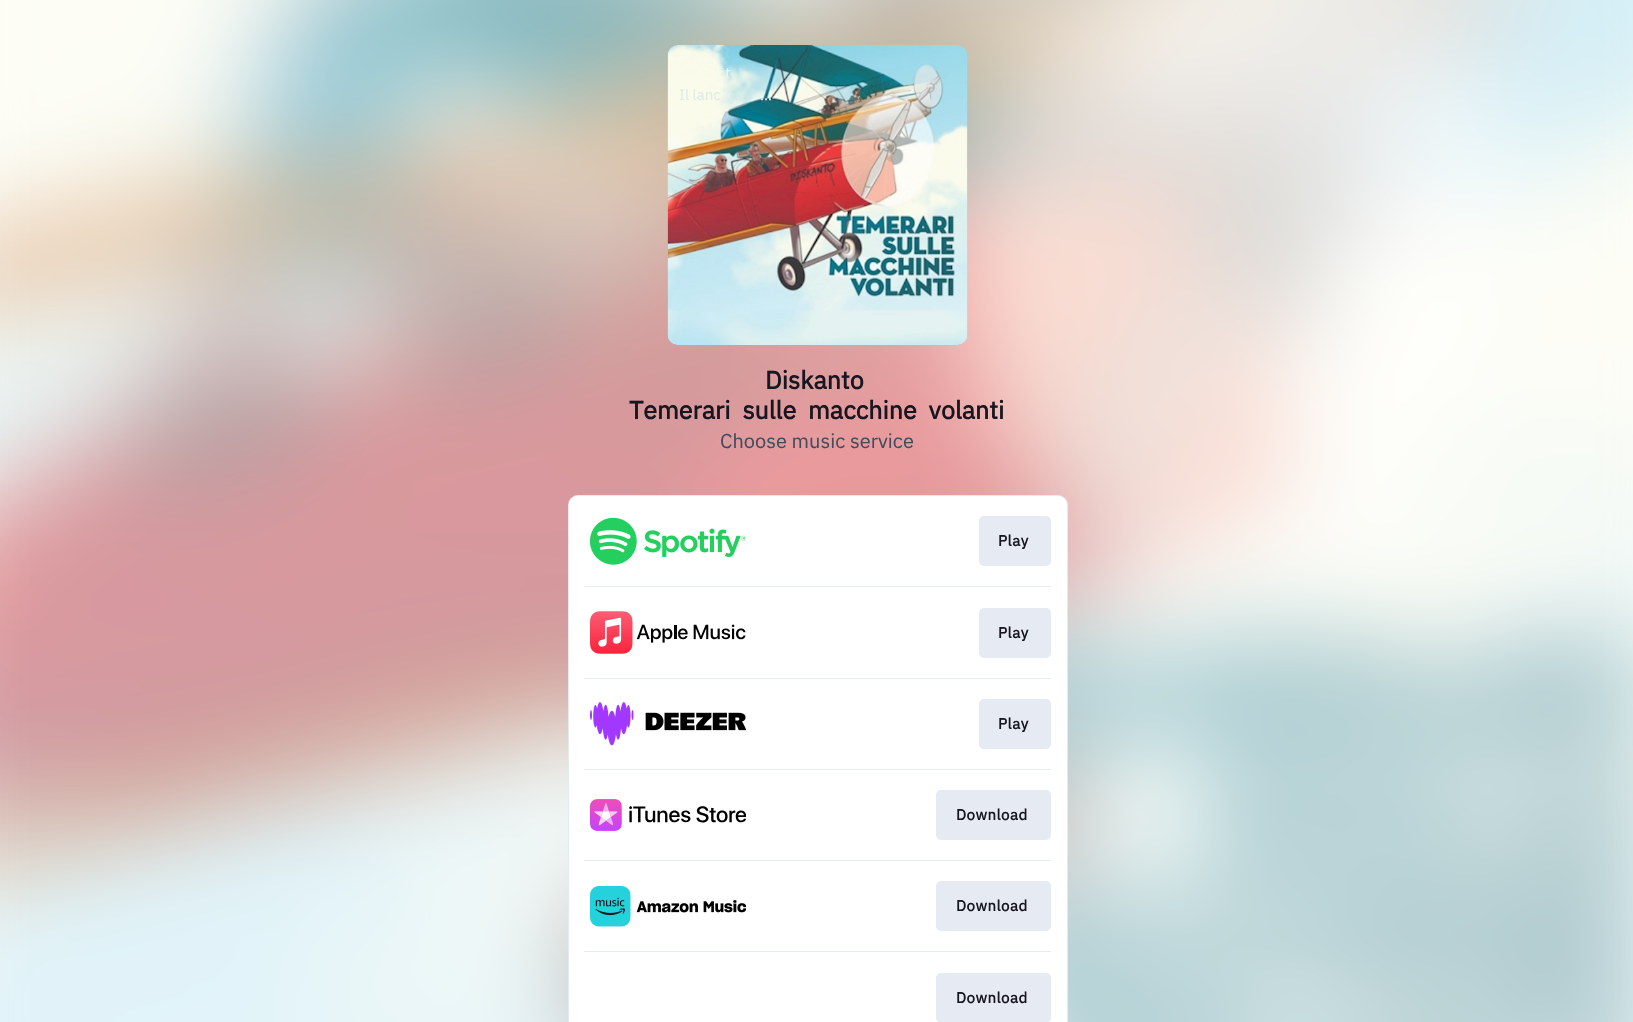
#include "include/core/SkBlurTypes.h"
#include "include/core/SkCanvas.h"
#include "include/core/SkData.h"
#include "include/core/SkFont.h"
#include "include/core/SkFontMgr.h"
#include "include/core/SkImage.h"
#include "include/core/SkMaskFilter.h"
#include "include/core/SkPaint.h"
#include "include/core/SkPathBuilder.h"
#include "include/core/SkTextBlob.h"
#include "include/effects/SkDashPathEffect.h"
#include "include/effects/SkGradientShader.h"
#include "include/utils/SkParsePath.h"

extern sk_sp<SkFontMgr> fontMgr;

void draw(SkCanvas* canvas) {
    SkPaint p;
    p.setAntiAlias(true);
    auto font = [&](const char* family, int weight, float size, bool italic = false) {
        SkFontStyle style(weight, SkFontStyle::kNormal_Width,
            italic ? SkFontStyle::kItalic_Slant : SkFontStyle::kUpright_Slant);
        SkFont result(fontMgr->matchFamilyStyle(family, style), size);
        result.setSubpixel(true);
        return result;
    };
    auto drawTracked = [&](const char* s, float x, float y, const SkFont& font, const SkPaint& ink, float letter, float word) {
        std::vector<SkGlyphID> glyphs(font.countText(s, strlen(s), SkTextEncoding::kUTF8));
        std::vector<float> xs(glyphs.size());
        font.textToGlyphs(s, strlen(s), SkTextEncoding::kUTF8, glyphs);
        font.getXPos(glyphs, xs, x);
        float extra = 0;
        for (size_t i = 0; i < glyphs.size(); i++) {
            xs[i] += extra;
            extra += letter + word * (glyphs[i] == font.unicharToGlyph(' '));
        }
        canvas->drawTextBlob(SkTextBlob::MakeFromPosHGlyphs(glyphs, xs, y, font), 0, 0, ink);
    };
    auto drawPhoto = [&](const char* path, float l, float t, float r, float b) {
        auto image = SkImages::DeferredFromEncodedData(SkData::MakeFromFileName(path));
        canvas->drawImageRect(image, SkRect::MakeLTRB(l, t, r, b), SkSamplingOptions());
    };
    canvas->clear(0xFFFFFFFF);
    drawPhoto("media/1.png", 0, 0, 1633, 1022);
    drawPhoto("media/2.png", 667, 45, 968, 345);
    auto font1 = font("IBM Plex Sans", 400, 15);
    p.setColor(0xFFEEF6EA);
    canvas->drawString("t", 725, 78, font1, p);
    p.setColor(0xFFDFEDE5);
    canvas->drawString("Il lanc", 679, 100, font1, p);
    canvas->drawString("…", 760, 100, font1, p);
    auto font2 = font("IBM Plex Sans", 700, 25);
    p.setColor(0xFF181721);
    canvas->drawString("Diskanto", 765, 389, font2, p);
    drawTracked("Temerari sulle macchine volanti", 629, 419, font2, p, 0, 6);
    auto font3 = font("IBM Plex Sans", 400, 20);
    p.setColor(0xFF454B5F);
    canvas->drawString("Choose music service", 720, 448, font3, p);
    p.setColor(0xFFFFFFFF);
    canvas->drawRoundRect(SkRect::MakeLTRB(568.5f, 495.5f, 1067.5f, 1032.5f), 9.5f, 9.5f, p);
    p.setStyle(SkPaint::kStroke_Style);
    p.setStrokeWidth(1);
    p.setColor(0xFFE6EAF2);
    canvas->drawRoundRect(SkRect::MakeLTRB(568.5f, 495.5f, 1067.5f, 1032.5f), 9.5f, 9.5f, p);
    p.setStyle(SkPaint::kFill_Style);
    p.setColor(0xFFFFFFFF);
    canvas->drawRoundRect(SkRect::MakeLTRB(569, 496, 1066, 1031), 9, 9, p);
    drawPhoto("media/3.png", 590, 517, 746, 565);
    p.setColor(0xFFE6EAF2);
    canvas->drawRoundRect(SkRect::MakeLTRB(979, 516, 1051, 566), 5, 5, p);
    auto font4 = font("IBM Plex Sans", 700, 15);
    p.setColor(0xFF181721);
    drawTracked("Play", 998, 546, font4, p, 0.5f, 0);
    p.setColor(0xFFE6EAF2);
    canvas->drawRect(SkRect::MakeLTRB(584, 586, 1051, 587), p);
    drawPhoto("media/4.png", 590, 611, 746, 654);
    canvas->drawRoundRect(SkRect::MakeLTRB(979, 608, 1051, 658), 5, 5, p);
    p.setColor(0xFF181721);
    drawTracked("Play", 998, 638, font4, p, 0.5f, 0);
    p.setColor(0xFFE6EAF2);
    canvas->drawRect(SkRect::MakeLTRB(584, 678, 1051, 679), p);
    drawPhoto("media/5.png", 590, 702, 746, 746);
    canvas->drawRoundRect(SkRect::MakeLTRB(979, 699, 1051, 749), 5, 5, p);
    p.setColor(0xFF181721);
    drawTracked("Play", 998, 729, font4, p, 0.5f, 0);
    p.setColor(0xFFE6EAF2);
    canvas->drawRect(SkRect::MakeLTRB(584, 769, 1051, 770), p);
    drawPhoto("media/6.png", 590, 799, 746, 831);
    canvas->drawRoundRect(SkRect::MakeLTRB(936, 790, 1051, 840), 5, 5, p);
    p.setColor(0xFF181721);
    drawTracked("Download", 956, 820, font4, p, 0.5f, 0);
    p.setColor(0xFFE6EAF2);
    canvas->drawRect(SkRect::MakeLTRB(584, 860, 1051, 861), p);
    drawPhoto("media/7.png", 590, 886, 746, 927);
    canvas->drawRoundRect(SkRect::MakeLTRB(936, 881, 1051, 931), 5, 5, p);
    p.setColor(0xFF181721);
    drawTracked("Download", 956, 911, font4, p, 0.5f, 0);
    p.setColor(0xFFE6EAF2);
    canvas->drawRect(SkRect::MakeLTRB(584, 951, 1051, 952), p);
    canvas->drawRoundRect(SkRect::MakeLTRB(936, 973, 1051, 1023), 5, 5, p);
    p.setColor(0xFF181721);
    drawTracked("Download", 956, 1003, font4, p, 0.5f, 0);
}
